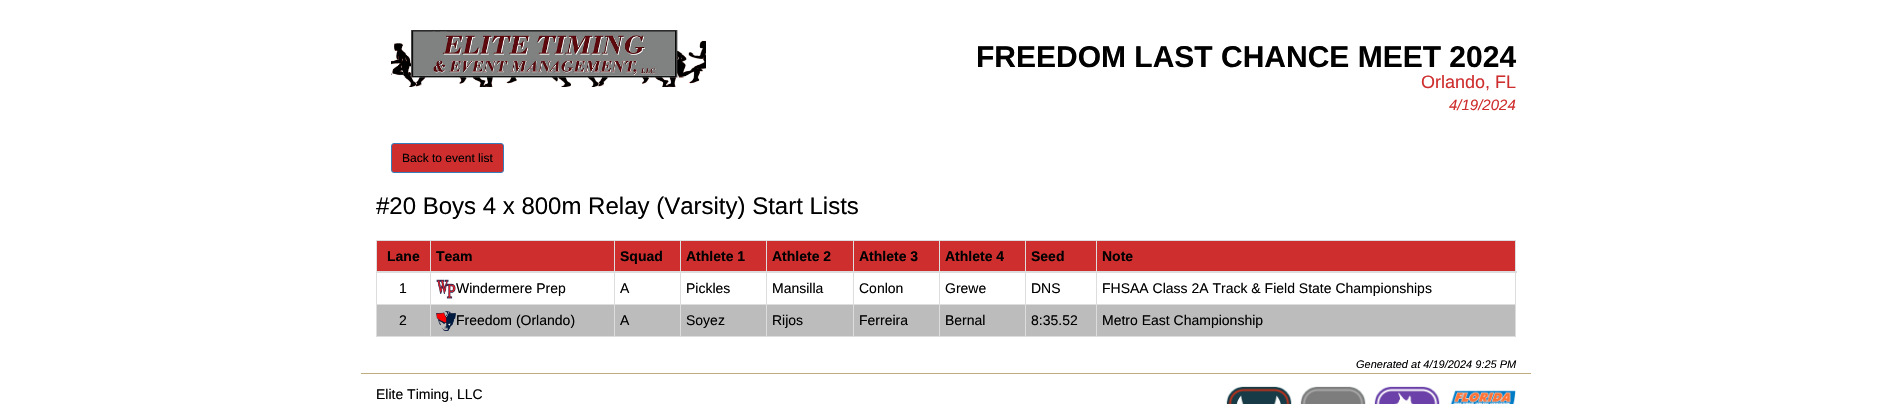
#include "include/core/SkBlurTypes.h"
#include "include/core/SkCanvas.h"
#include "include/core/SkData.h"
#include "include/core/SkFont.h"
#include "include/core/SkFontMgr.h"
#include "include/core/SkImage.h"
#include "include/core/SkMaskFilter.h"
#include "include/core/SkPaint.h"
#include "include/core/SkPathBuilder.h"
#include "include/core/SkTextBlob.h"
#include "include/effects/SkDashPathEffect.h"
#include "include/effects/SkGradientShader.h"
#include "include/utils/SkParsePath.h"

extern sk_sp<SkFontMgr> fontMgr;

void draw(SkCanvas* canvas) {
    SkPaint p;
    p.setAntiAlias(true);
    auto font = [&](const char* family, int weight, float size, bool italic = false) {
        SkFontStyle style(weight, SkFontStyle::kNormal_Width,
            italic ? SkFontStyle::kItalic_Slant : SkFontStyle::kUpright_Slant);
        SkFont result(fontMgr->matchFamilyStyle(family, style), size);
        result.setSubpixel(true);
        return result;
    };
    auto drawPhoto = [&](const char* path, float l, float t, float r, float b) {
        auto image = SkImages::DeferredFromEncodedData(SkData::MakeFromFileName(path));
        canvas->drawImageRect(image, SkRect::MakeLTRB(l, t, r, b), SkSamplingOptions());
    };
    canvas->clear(0xFFFFFFFF);
    drawPhoto("media/1.png", 391, 30, 706, 87);
    auto font1 = font("Liberation Sans", 700, 30);
    p.setColor(0xFF000000);
    canvas->drawString("FREEDOM LAST CHANCE MEET 2024", 976, 67, font1, p);
    auto font2 = font("Liberation Sans", 400, 18);
    p.setColor(0xFFCF2E2E);
    canvas->drawString("Orlando, FL", 1421, 88, font2, p);
    auto font3 = font("Liberation Sans", 400, 15, true);
    canvas->drawString("4/19/2024", 1449, 110, font3, p);
    canvas->drawRoundRect(SkRect::MakeLTRB(391.5f, 143.5f, 503.5f, 172.5f), 2.5f, 2.5f, p);
    p.setStyle(SkPaint::kStroke_Style);
    p.setStrokeWidth(1);
    p.setColor(0xFF357EBD);
    canvas->drawRoundRect(SkRect::MakeLTRB(391.5f, 143.5f, 503.5f, 172.5f), 2.5f, 2.5f, p);
    auto font4 = font("Liberation Sans", 400, 12);
    p.setStyle(SkPaint::kFill_Style);
    p.setColor(0xFF000000);
    canvas->drawString("Back to event list", 402, 162, font4, p);
    auto font5 = font("Liberation Sans", 400, 24);
    canvas->drawString("#20 Boys 4 x 800m Relay (Varsity) Start Lists", 376, 214, font5, p);
    {
        const struct { float l, t, r, b; SkColor color; } items[] = {
            {377, 305, 1515, 336, 0xFFBCBCBC},
            {376, 240, 1516, 241, 0xFFDDDDDD},
            {1515, 240, 1516, 337, 0xFFDDDDDD},
            {376, 336, 1516, 337, 0xFFDDDDDD},
            {376, 240, 377, 337, 0xFFDDDDDD},
            {377, 241, 430, 271, 0xFFCF2E2E},
        };
        for (auto [l, t, r, b, color] : items) {
            p.setColor(color);
            canvas->drawRect(SkRect::MakeLTRB(l, t, r, b), p);
        }
    }
    auto font6 = font("Liberation Sans", 700, 14);
    p.setColor(0xFF000000);
    canvas->drawString("Lane", 387, 261, font6, p);
    p.setColor(0xFFCF2E2E);
    canvas->drawRect(SkRect::MakeLTRB(431, 241, 614, 271), p);
    p.setColor(0xFF000000);
    canvas->drawString("Team", 436, 261, font6, p);
    p.setColor(0xFFCF2E2E);
    canvas->drawRect(SkRect::MakeLTRB(615, 241, 680, 271), p);
    p.setColor(0xFF000000);
    canvas->drawString("Squad", 620, 261, font6, p);
    p.setColor(0xFFCF2E2E);
    canvas->drawRect(SkRect::MakeLTRB(681, 241, 766, 271), p);
    p.setColor(0xFF000000);
    canvas->drawString("Athlete 1", 686, 261, font6, p);
    p.setColor(0xFFCF2E2E);
    canvas->drawRect(SkRect::MakeLTRB(767, 241, 853, 271), p);
    p.setColor(0xFF000000);
    canvas->drawString("Athlete 2", 772, 261, font6, p);
    p.setColor(0xFFCF2E2E);
    canvas->drawRect(SkRect::MakeLTRB(854, 241, 939, 271), p);
    p.setColor(0xFF000000);
    canvas->drawString("Athlete 3", 859, 261, font6, p);
    p.setColor(0xFFCF2E2E);
    canvas->drawRect(SkRect::MakeLTRB(940, 241, 1025, 271), p);
    p.setColor(0xFF000000);
    canvas->drawString("Athlete 4", 945, 261, font6, p);
    p.setColor(0xFFCF2E2E);
    canvas->drawRect(SkRect::MakeLTRB(1026, 241, 1096, 271), p);
    p.setColor(0xFF000000);
    canvas->drawString("Seed", 1031, 261, font6, p);
    {
        const struct { float l, t, r, b; SkColor color; } items[] = {
            {1097, 241, 1515, 271, 0xFFCF2E2E},
            {1096, 304, 1516, 305, 0xFFDDDDDD},
            {1096, 304, 1097, 337, 0xFFDDDDDD},
            {1025, 304, 1097, 305, 0xFFDDDDDD},
            {1025, 304, 1026, 337, 0xFFDDDDDD},
            {939, 304, 1026, 305, 0xFFDDDDDD},
            {939, 304, 940, 337, 0xFFDDDDDD},
            {853, 304, 940, 305, 0xFFDDDDDD},
            {853, 304, 854, 337, 0xFFDDDDDD},
            {766, 304, 854, 305, 0xFFDDDDDD},
            {766, 304, 767, 337, 0xFFDDDDDD},
            {680, 304, 767, 305, 0xFFDDDDDD},
            {680, 304, 681, 337, 0xFFDDDDDD},
            {614, 304, 681, 305, 0xFFDDDDDD},
            {614, 304, 615, 337, 0xFFDDDDDD},
            {430, 304, 615, 305, 0xFFDDDDDD},
            {430, 304, 431, 337, 0xFFDDDDDD},
            {376, 304, 431, 305, 0xFFDDDDDD},
            {430, 240, 431, 305, 0xFFDDDDDD},
            {614, 240, 615, 305, 0xFFDDDDDD},
            {680, 240, 681, 305, 0xFFDDDDDD},
            {766, 240, 767, 305, 0xFFDDDDDD},
            {853, 240, 854, 305, 0xFFDDDDDD},
            {939, 240, 940, 305, 0xFFDDDDDD},
            {1025, 240, 1026, 305, 0xFFDDDDDD},
            {1096, 240, 1097, 305, 0xFFDDDDDD},
            {376, 271, 1517, 273, 0xFFDDDDDD},
        };
        for (auto [l, t, r, b, color] : items) {
            p.setColor(color);
            canvas->drawRect(SkRect::MakeLTRB(l, t, r, b), p);
        }
    }
    p.setColor(0xFF000000);
    canvas->drawString("Note", 1102, 261, font6, p);
    auto font7 = font("Liberation Sans", 400, 14);
    canvas->drawString("1", 399, 293, font7, p);
    drawPhoto("media/2.png", 436, 279, 456, 299);
    {
        const struct { const char* s; float x, y; } items[] = {
            {"Windermere Prep", 456, 293},
            {"A", 620, 293},
            {"Pickles", 686, 293},
            {"Mansilla", 772, 293},
            {"Conlon", 859, 293},
            {"Grewe", 945, 293},
            {"DNS", 1031, 293},
            {"FHSAA Class 2A Track & Field State Championships", 1102, 293},
            {"2", 399, 325},
        };
        for (auto [s, x, y] : items) {
            canvas->drawString(s, x, y, font7, p);
        }
    }
    drawPhoto("media/3.png", 436, 311, 456, 331);
    {
        const struct { const char* s; float x, y; } items[] = {
            {"Freedom (Orlando)", 456, 325},
            {"A", 620, 325},
            {"Soyez", 686, 325},
            {"Rijos", 772, 325},
            {"Ferreira", 859, 325},
            {"Bernal", 945, 325},
            {"8:35.52", 1031, 325},
            {"Metro East Championship", 1102, 325},
        };
        for (auto [s, x, y] : items) {
            canvas->drawString(s, x, y, font7, p);
        }
    }
    auto font8 = font("Liberation Sans", 400, 11, true);
    canvas->drawString("Generated at 4/19/2024 9:25 PM", 1356, 368, font8, p);
    p.setColor(0xFFC0AC7E);
    canvas->drawRect(SkRect::MakeLTRB(361, 373, 1531, 374), p);
    p.setColor(0xFF000000);
    canvas->drawString("Elite Timing, LLC", 376, 399, font7, p);
    drawPhoto("media/4.png", 1226, 386, 1292, 404);
    drawPhoto("media/5.png", 1300, 386, 1366, 404);
    drawPhoto("media/6.png", 1374, 386, 1440, 404);
    drawPhoto("media/7.png", 1450, 390, 1516, 404);
}
